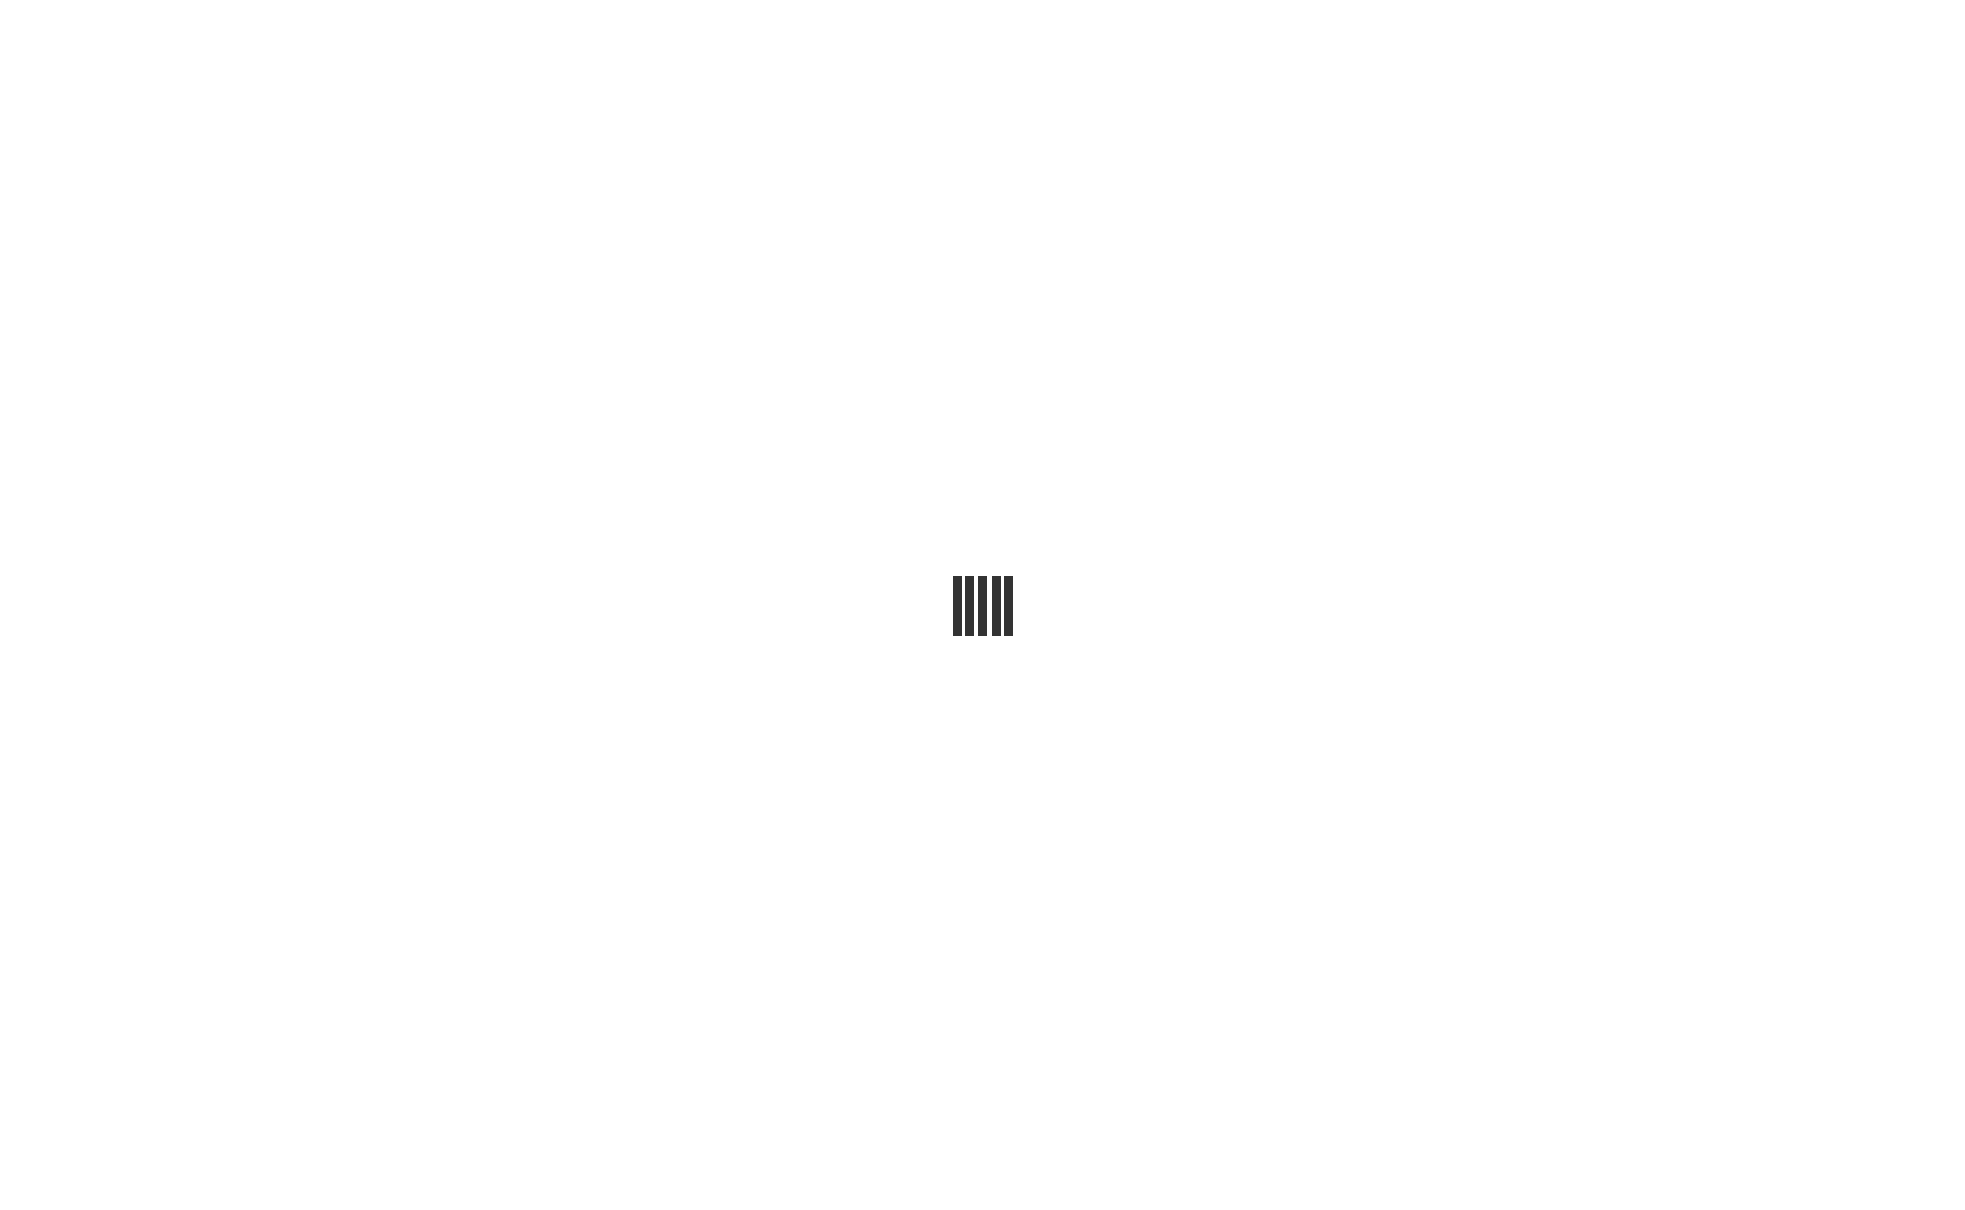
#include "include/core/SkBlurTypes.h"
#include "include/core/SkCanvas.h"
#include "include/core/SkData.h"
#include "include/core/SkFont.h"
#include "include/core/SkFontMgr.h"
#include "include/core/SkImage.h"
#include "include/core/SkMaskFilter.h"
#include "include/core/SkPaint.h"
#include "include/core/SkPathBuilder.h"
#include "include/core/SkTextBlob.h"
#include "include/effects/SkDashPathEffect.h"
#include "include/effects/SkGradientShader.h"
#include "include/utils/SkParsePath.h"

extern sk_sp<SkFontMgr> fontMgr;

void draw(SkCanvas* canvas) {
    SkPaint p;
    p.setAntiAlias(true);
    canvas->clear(0xFFFFFFFF);
    {
        const struct { float l, t, r, b; SkColor color; } items[] = {
            {953, 576, 962, 636, 0xFF333333},
            {965, 576, 974, 636, 0xFF333333},
            {978, 576, 987, 636, 0xFF333333},
            {992, 576, 1001, 636, 0xFF333333},
            {1004, 576, 1013, 636, 0xFF333333},
        };
        for (auto [l, t, r, b, color] : items) {
            p.setColor(color);
            canvas->drawRect(SkRect::MakeLTRB(l, t, r, b), p);
        }
    }
}
